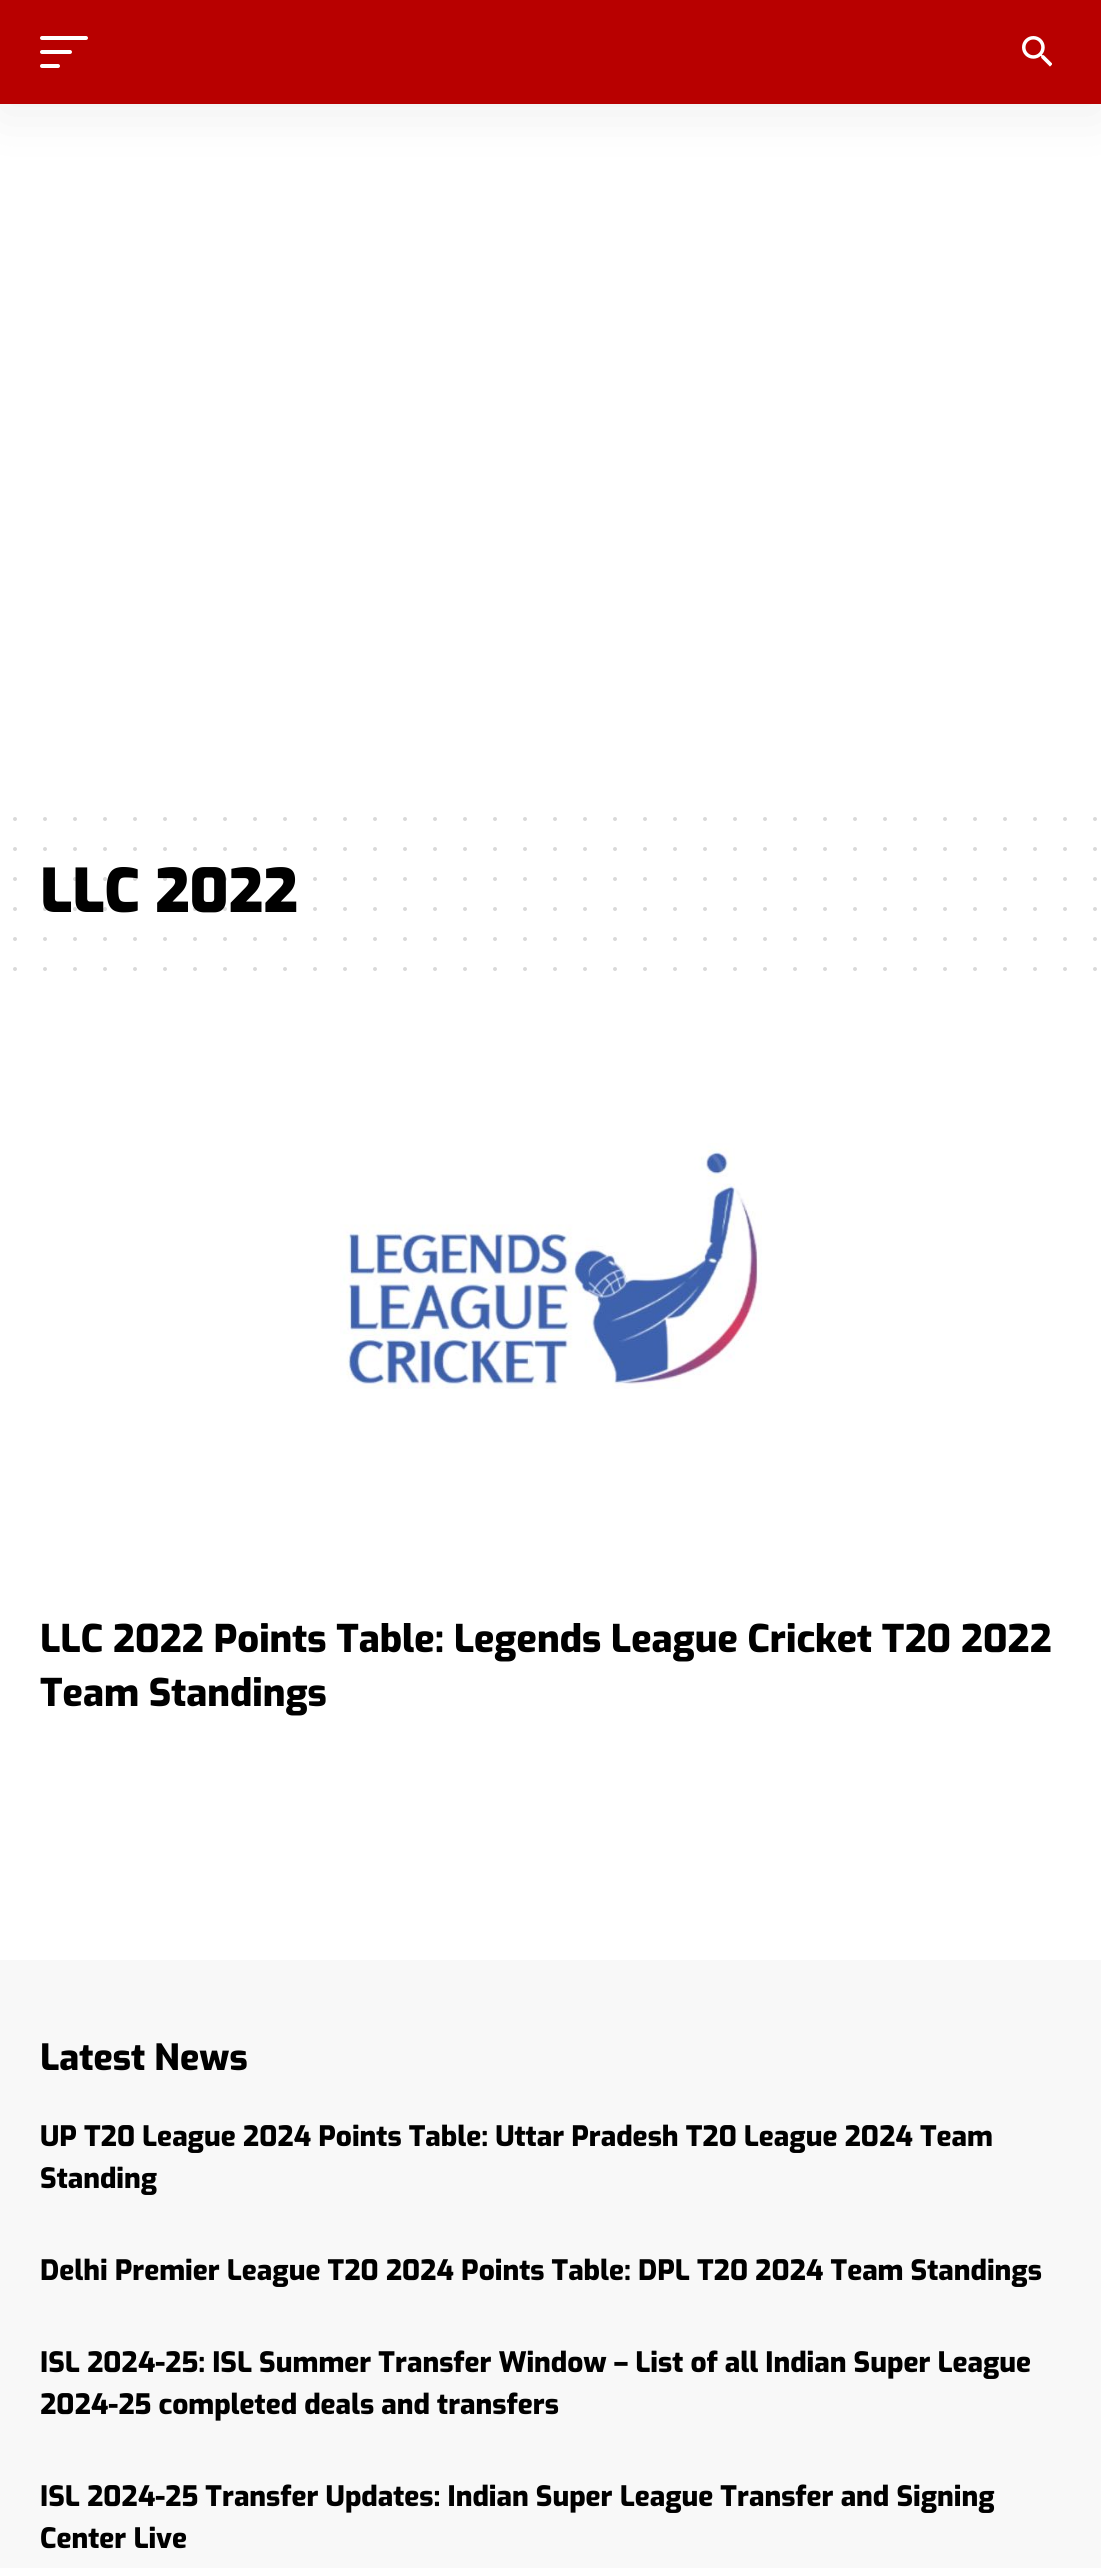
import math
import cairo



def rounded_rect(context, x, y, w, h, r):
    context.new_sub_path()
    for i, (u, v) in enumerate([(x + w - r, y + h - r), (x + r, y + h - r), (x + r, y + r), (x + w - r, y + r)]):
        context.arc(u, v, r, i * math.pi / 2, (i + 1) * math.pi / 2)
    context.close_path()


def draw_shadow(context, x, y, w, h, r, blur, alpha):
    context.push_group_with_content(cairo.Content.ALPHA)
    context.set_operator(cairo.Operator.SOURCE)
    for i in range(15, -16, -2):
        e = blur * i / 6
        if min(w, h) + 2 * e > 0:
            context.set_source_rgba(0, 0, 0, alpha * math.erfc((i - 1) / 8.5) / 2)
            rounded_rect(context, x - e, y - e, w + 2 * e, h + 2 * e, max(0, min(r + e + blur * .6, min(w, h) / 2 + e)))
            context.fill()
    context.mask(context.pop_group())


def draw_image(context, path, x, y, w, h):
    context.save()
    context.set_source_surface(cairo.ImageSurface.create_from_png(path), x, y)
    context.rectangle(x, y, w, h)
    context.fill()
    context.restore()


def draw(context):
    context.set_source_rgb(1, 1, 1)
    context.paint()
    context.set_source_rgb(0, 0, 0)
    draw_shadow(context, 0, 8, 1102, 104, 0, 30, 0.07)
    context.set_source_rgb(184 / 255, 0, 0)
    context.rectangle(0, 0, 1101, 104)
    context.fill()
    context.set_source_rgb(1, 1, 1)
    rounded_rect(context, 40, 36, 48, 4, 2)
    context.fill()
    rounded_rect(context, 40, 50, 32, 4, 2)
    context.fill()
    rounded_rect(context, 40, 64, 20, 4, 2)
    context.fill()
    draw_image(context, "images/1.png", 1022, 36, 30, 31)
    context.new_path()
    context.move_to(15, 819)
    context.line_to(1095.4, 819)
    context.set_source_rgb(217 / 255, 217 / 255, 217 / 255)
    context.set_line_width(4)
    context.set_line_cap(cairo.LineCap.ROUND)
    context.set_dash([0, 30])
    context.stroke()
    context.new_path()
    context.move_to(15, 849)
    context.line_to(1095.4, 849)
    context.stroke()
    context.new_path()
    context.move_to(15, 939)
    context.line_to(1095.4, 939)
    context.stroke()
    context.new_path()
    context.move_to(15, 969)
    context.line_to(1095.4, 969)
    context.stroke()
    draw_image(context, "images/2.png", 340, 1143, 422, 246)
    context.set_source_rgb(248 / 255, 248 / 255, 248 / 255)
    context.rectangle(0, 1960, 1101, 608)
    context.fill()
    context.select_font_face("Exo Black")
    context.set_font_size(60)
    context.set_source_rgb(0, 0, 0)
    context.move_to(40, 912)
    context.show_text("LLC 2022")
    context.new_path()
    context.move_to(15, 909)
    context.line_to(1095.4, 909)
    context.set_source_rgba(0, 0, 0, 0.15)
    context.stroke()
    context.new_path()
    context.move_to(15, 879)
    context.line_to(1095.4, 879)
    context.stroke()
    context.select_font_face("Exo ExtraBold")
    context.set_font_size(38)
    context.set_source_rgb(0, 0, 0)
    context.move_to(40, 1652)
    context.show_text("LLC 2022 Points Table: Legends League Cricket T20 2022")
    context.move_to(40, 1706)
    context.show_text("Team Standings")
    context.set_font_size(36)
    context.move_to(40, 2070)
    context.show_text("Latest News")
    context.set_font_size(28)
    context.move_to(40, 2146)
    context.show_text("UP T20 League 2024 Points Table: Uttar Pradesh T20 League 2024 Team")
    context.move_to(40, 2188)
    context.show_text("Standing")
    context.move_to(40, 2280)
    context.show_text("Delhi Premier League T20 2024 Points Table: DPL T20 2024 Team Standings")
    context.move_to(40, 2372)
    context.show_text("ISL 2024-25: ISL Summer Transfer Window – List of all Indian Super League")
    context.move_to(40, 2414)
    context.show_text("2024-25 completed deals and transfers")
    context.move_to(40, 2506)
    context.show_text("ISL 2024-25 Transfer Updates: Indian Super League Transfer and Signing")
    context.move_to(40, 2548)
    context.show_text("Center Live")


surface = cairo.ImageSurface(cairo.Format.RGB24, 1101, 2568)
context = cairo.Context(surface)
options = cairo.FontOptions()
options.set_hint_metrics(cairo.HintMetrics.OFF)
options.set_hint_style(cairo.HintStyle.NONE)
context.set_font_options(options)
context.set_miter_limit(4)
draw(context)
surface.write_to_png("out.png")
